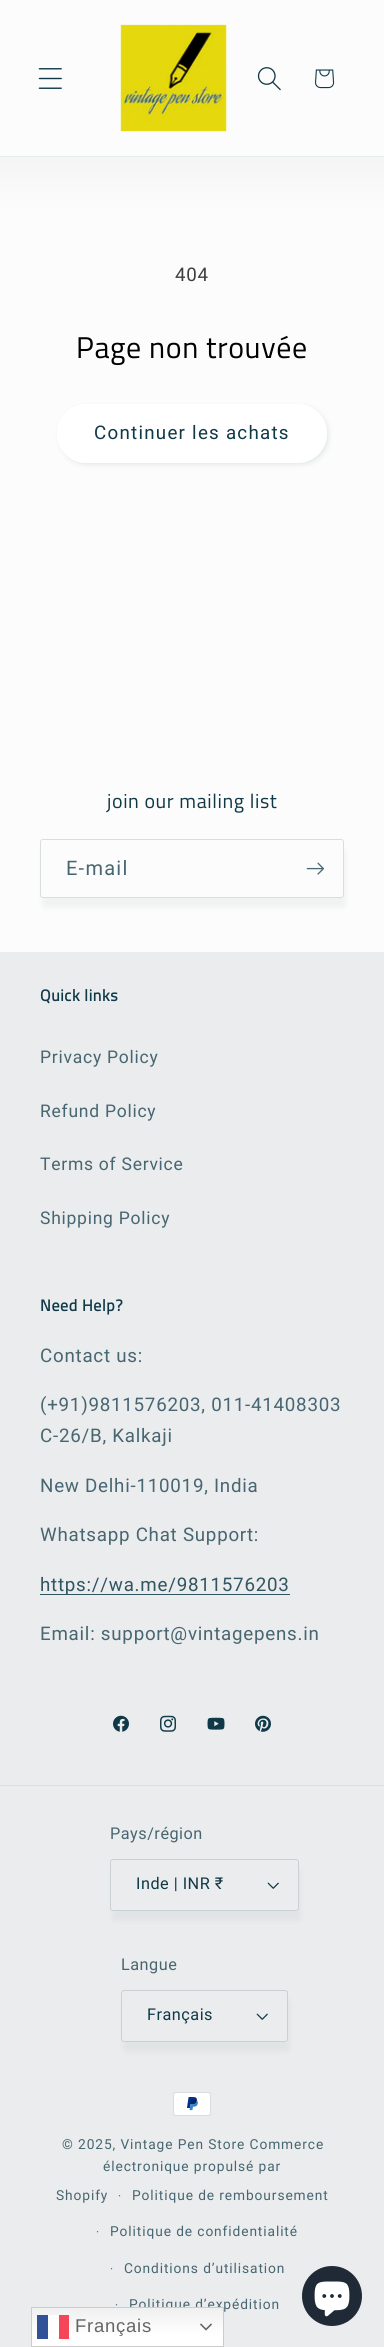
import math
import cairo



def draw_spaced(context, x, y, s, letter, word):
    context.move_to(x, y)
    for ch in s:
        context.show_text(ch)
        context.rel_move_to(letter + word * (ch == ' '), 0)


def rounded_rect(context, x, y, w, h, r):
    context.new_sub_path()
    for i, (u, v) in enumerate([(x + w - r, y + h - r), (x + r, y + h - r), (x + r, y + r), (x + w - r, y + r)]):
        context.arc(u, v, r, i * math.pi / 2, (i + 1) * math.pi / 2)
    context.close_path()


def draw_shadow(context, x, y, w, h, r, blur, alpha):
    context.push_group_with_content(cairo.Content.ALPHA)
    context.set_operator(cairo.Operator.SOURCE)
    for i in range(15, -16, -2):
        e = blur * i / 6
        if min(w, h) + 2 * e > 0:
            context.set_source_rgba(0, 0, 0, alpha * math.erfc((i - 1) / 8.5) / 2)
            rounded_rect(context, x - e, y - e, w + 2 * e, h + 2 * e, max(0, min(r + e + blur * .6, min(w, h) / 2 + e)))
            context.fill()
    context.mask(context.pop_group())


def draw_image(context, path, x, y, w, h):
    context.save()
    context.set_source_surface(cairo.ImageSurface.create_from_png(path), x, y)
    context.rectangle(x, y, w, h)
    context.fill()
    context.restore()


def draw(context):
    context.set_source_rgb(1, 1, 1)
    context.paint()
    gradient = cairo.LinearGradient(192, 2347, 192, 0)
    gradient.add_color_stop_rgba(0.91, 252 / 255, 252 / 255, 252 / 255, 1)
    gradient.add_color_stop_rgba(0.96, 235 / 255, 236 / 255, 237 / 255, 1)
    context.set_source(gradient)
    context.rectangle(0, 157, 384, 795)
    context.fill()
    context.set_source_rgb(252 / 255, 252 / 255, 252 / 255)
    context.rectangle(0, 0, 384, 156)
    context.fill()
    context.set_source_rgb(233 / 255, 236 / 255, 238 / 255)
    context.rectangle(0, 156, 384, 1)
    context.fill()
    draw_image(context, "images/1.png", 38, 68, 24, 21)
    draw_image(context, "images/2.png", 120, 24, 107, 108)
    draw_image(context, "images/3.png", 257, 67, 24, 24)
    draw_image(context, "images/4.png", 315, 69, 20, 20)
    context.set_source_rgb(16 / 255, 57 / 255, 72 / 255)
    draw_shadow(context, 59, 406, 270, 59, 29.5, 2.5, 0.1)
    context.set_source_rgb(1, 1, 1)
    rounded_rect(context, 57, 404, 270, 59, 29.5)
    context.fill()
    rounded_rect(context, 57.5, 404.5, 269, 58, 29)
    context.set_line_width(1)
    context.stroke()
    context.save()
    context.set_fill_rule(cairo.FillRule.EVEN_ODD)
    context.new_path()
    context.move_to(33, 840)
    context.line_to(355, 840)
    context.line_to(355, 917)
    context.line_to(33, 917)
    context.close_path()
    context.move_to(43, 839)
    context.line_to(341, 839)
    context.curve_to(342.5, 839, 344, 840.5, 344, 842)
    context.line_to(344, 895)
    context.curve_to(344, 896.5, 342.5, 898, 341, 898)
    context.line_to(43, 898)
    context.curve_to(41.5, 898, 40, 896.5, 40, 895)
    context.line_to(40, 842)
    context.curve_to(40, 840.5, 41.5, 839, 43, 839)
    context.close_path()
    context.clip()
    context.set_source_rgb(16 / 255, 57 / 255, 72 / 255)
    draw_shadow(context, 42, 849, 304, 59, 3, 2.5, 0.05)
    context.restore()
    rounded_rect(context, 40.5, 839.5, 303, 58, 2.5)
    context.set_source_rgba(16 / 255, 57 / 255, 72 / 255, 0.15)
    context.stroke()
    draw_image(context, "images/5.png", 306, 862, 18, 13)
    context.set_source_rgb(235 / 255, 236 / 255, 237 / 255)
    context.rectangle(0, 952, 384, 1395)
    context.fill()
    context.set_source_rgb(49 / 255, 84 / 255, 97 / 255)
    context.rectangle(40, 1594, 250, 1)
    context.fill()
    draw_image(context, "images/6.png", 113, 1715, 16, 17)
    draw_image(context, "images/7.png", 160, 1715, 16, 17)
    draw_image(context, "images/8.png", 207, 1717, 18, 13)
    draw_image(context, "images/9.png", 255, 1715, 16, 17)
    context.set_source_rgb(217 / 255, 222 / 255, 224 / 255)
    context.rectangle(0, 1785, 384, 1)
    context.fill()
    context.set_source_rgb(16 / 255, 57 / 255, 72 / 255)
    draw_shadow(context, 112, 1869, 189, 52, 3, 2.5, 0.05)
    context.set_source_rgb(235 / 255, 236 / 255, 237 / 255)
    rounded_rect(context, 110, 1859, 189, 52, 3)
    context.fill()
    draw_image(context, "images/10.png", 267, 1882, 12, 7)
    rounded_rect(context, 110.5, 1859.5, 188, 51, 2.5)
    context.set_source_rgb(202 / 255, 209 / 255, 212 / 255)
    context.stroke()
    context.set_source_rgb(16 / 255, 57 / 255, 72 / 255)
    draw_shadow(context, 123, 2000, 167, 52, 3, 2.5, 0.05)
    context.set_source_rgb(235 / 255, 236 / 255, 237 / 255)
    rounded_rect(context, 121, 1990, 167, 52, 3)
    context.fill()
    draw_image(context, "images/10.png", 256, 2013, 12, 7)
    rounded_rect(context, 121.5, 1990.5, 166, 51, 2.5)
    context.set_source_rgb(202 / 255, 209 / 255, 212 / 255)
    context.stroke()
    draw_image(context, "images/11.png", 173, 2092, 38, 24)
    context.set_source_rgb(32 / 255, 42 / 255, 54 / 255)
    context.arc(332, 2296, 30, 0, 2 * math.pi)
    context.fill()
    draw_image(context, "images/13.png", 314, 2281, 36, 36)
    context.select_font_face("Roboto")
    context.set_font_size(18.75)
    context.set_source_rgb(63 / 255, 63 / 255, 63 / 255)
    draw_spaced(context, 175, 281, "404", 0.75, 0)
    context.select_font_face("Titillium Web")
    context.set_font_size(30)
    context.set_source_rgb(0, 0, 0)
    draw_spaced(context, 76, 358, "Page non trouvée", 0.6, 0)
    context.select_font_face("Roboto")
    context.set_font_size(18.75)
    context.set_source_rgb(16 / 255, 57 / 255, 72 / 255)
    draw_spaced(context, 94, 439, "Continuer les achats", 1.25, 0)
    context.select_font_face("Titillium Web")
    context.set_font_size(20)
    draw_spaced(context, 107, 808, "join our mailing list", 0.6, 0)
    context.select_font_face("Roboto")
    context.set_source_rgb(71 / 255, 102 / 255, 113 / 255)
    draw_spaced(context, 66, 875, "E-mail", 1.25, 0)
    context.select_font_face("Titillium Web", cairo.FontSlant.NORMAL, cairo.FontWeight.BOLD)
    context.set_font_size(16)
    context.set_source_rgb(16 / 255, 57 / 255, 72 / 255)
    draw_spaced(context, 40, 1001, "Quick links", 0.6, 0)
    context.select_font_face("Roboto")
    context.set_font_size(17.5)
    context.set_source_rgb(71 / 255, 102 / 255, 113 / 255)
    draw_spaced(context, 40, 1063, "Privacy Policy", 0.75, 0)
    draw_spaced(context, 40, 1117, "Refund Policy", 0.75, 0)
    draw_spaced(context, 40, 1170, "Terms of Service", 0.75, 0)
    draw_spaced(context, 40, 1224, "Shipping Policy", 0.75, 0)
    context.select_font_face("Titillium Web", cairo.FontSlant.NORMAL, cairo.FontWeight.BOLD)
    context.set_font_size(16)
    context.set_source_rgb(16 / 255, 57 / 255, 72 / 255)
    draw_spaced(context, 40, 1311, "Need Help?", 0.6, 0)
    context.select_font_face("Roboto")
    context.set_font_size(18.75)
    context.set_source_rgb(71 / 255, 102 / 255, 113 / 255)
    draw_spaced(context, 40, 1362, "Contact us:", 0.75, 0)
    draw_spaced(context, 40, 1411, "(+91)9811576203, 011-41408303", 0.75, 0)
    draw_spaced(context, 40, 1442, "C-26/B, Kalkaji", 0.75, 0)
    draw_spaced(context, 40, 1492, "New Delhi-110019, India", 0.75, 0)
    draw_spaced(context, 40, 1541, "Whatsapp Chat Support:", 0.75, 0)
    context.set_source_rgb(49 / 255, 84 / 255, 97 / 255)
    draw_spaced(context, 40, 1591, "https://wa.me/9811576203", 0.75, 0)
    context.set_source_rgb(71 / 255, 102 / 255, 113 / 255)
    draw_spaced(context, 40, 1640, "Email: support@vintagepens.in", 0.75, 0)
    context.set_font_size(16.25)
    draw_spaced(context, 110, 1839, "Pays/région", 0.5, 0)
    context.set_source_rgb(16 / 255, 57 / 255, 72 / 255)
    draw_spaced(context, 136, 1889, "Inde | INR ₹", 0.5, 0)
    context.set_source_rgb(71 / 255, 102 / 255, 113 / 255)
    draw_spaced(context, 121, 1970, "Langue", 0.5, 0)
    context.set_source_rgb(16 / 255, 57 / 255, 72 / 255)
    draw_spaced(context, 147, 2020, "Français", 0.5, 0)
    context.set_font_size(13.75)
    context.set_source_rgb(71 / 255, 102 / 255, 113 / 255)
    draw_spaced(context, 62, 2149, "© 2025, Vintage Pen Store Commerce", 0.9, 0)
    draw_spaced(context, 103, 2171, "électronique propulsé par", 0.9, 0)
    draw_spaced(context, 56, 2200, "Shopify", 0.9, 0)
    context.set_font_size(12)
    draw_spaced(context, 118, 2200, "·", 0.9, 0)
    context.set_font_size(13.75)
    draw_spaced(context, 132, 2200, "Politique de remboursement", 0.9, 0)
    context.set_font_size(12)
    draw_spaced(context, 96, 2236, "·", 0.9, 0)
    context.set_font_size(13.75)
    draw_spaced(context, 110, 2236, "Politique de confidentialité", 0.9, 0)
    context.set_font_size(12)
    draw_spaced(context, 110, 2273, "·", 0.9, 0)
    context.set_font_size(13.75)
    draw_spaced(context, 124, 2273, "Conditions d’utilisation", 0.9, 0)
    context.set_font_size(12)
    draw_spaced(context, 115, 2309, "·", 0.9, 0)
    context.set_font_size(13.75)
    draw_spaced(context, 129, 2309, "Politique d’expédition", 0.9, 0)
    gradient = cairo.LinearGradient(128, 2307, 128, 2347)
    gradient.add_color_stop_rgba(0, 239 / 255, 239 / 255, 239 / 255, 1)
    gradient.add_color_stop_rgba(0.7, 1, 1, 1, 1)
    context.set_source(gradient)
    context.rectangle(32, 2308, 191, 38)
    context.fill()
    gradient = cairo.LinearGradient(128, 2307, 128, 2347)
    gradient.add_color_stop_rgba(0, 252 / 255, 252 / 255, 252 / 255, 1)
    gradient.add_color_stop_rgba(0.7, 1, 1, 1, 1)
    context.set_source(gradient)
    context.rectangle(48, 2315, 11, 16)
    context.fill()
    context.rectangle(31.5, 2307.5, 192, 39)
    context.set_source_rgb(204 / 255, 204 / 255, 204 / 255)
    context.stroke()
    context.set_source_rgb(51 / 255, 81 / 255, 152 / 255)
    context.rectangle(37, 2315, 11, 24)
    context.fill()
    context.set_source_rgb(245 / 255, 70 / 255, 89 / 255)
    context.rectangle(59, 2315, 10, 24)
    context.fill()
    context.select_font_face("Liberation Sans")
    context.set_font_size(18.5)
    context.set_source_rgb(102 / 255, 102 / 255, 102 / 255)
    draw_spaced(context, 75, 2332, "Français", 0.75, 0)
    draw_image(context, "images/12.png", 200, 2323, 12, 8)


surface = cairo.ImageSurface(cairo.Format.RGB24, 384, 2347)
context = cairo.Context(surface)
options = cairo.FontOptions()
options.set_hint_metrics(cairo.HintMetrics.OFF)
options.set_hint_style(cairo.HintStyle.NONE)
context.set_font_options(options)
context.set_miter_limit(4)
draw(context)
surface.write_to_png("out.png")
